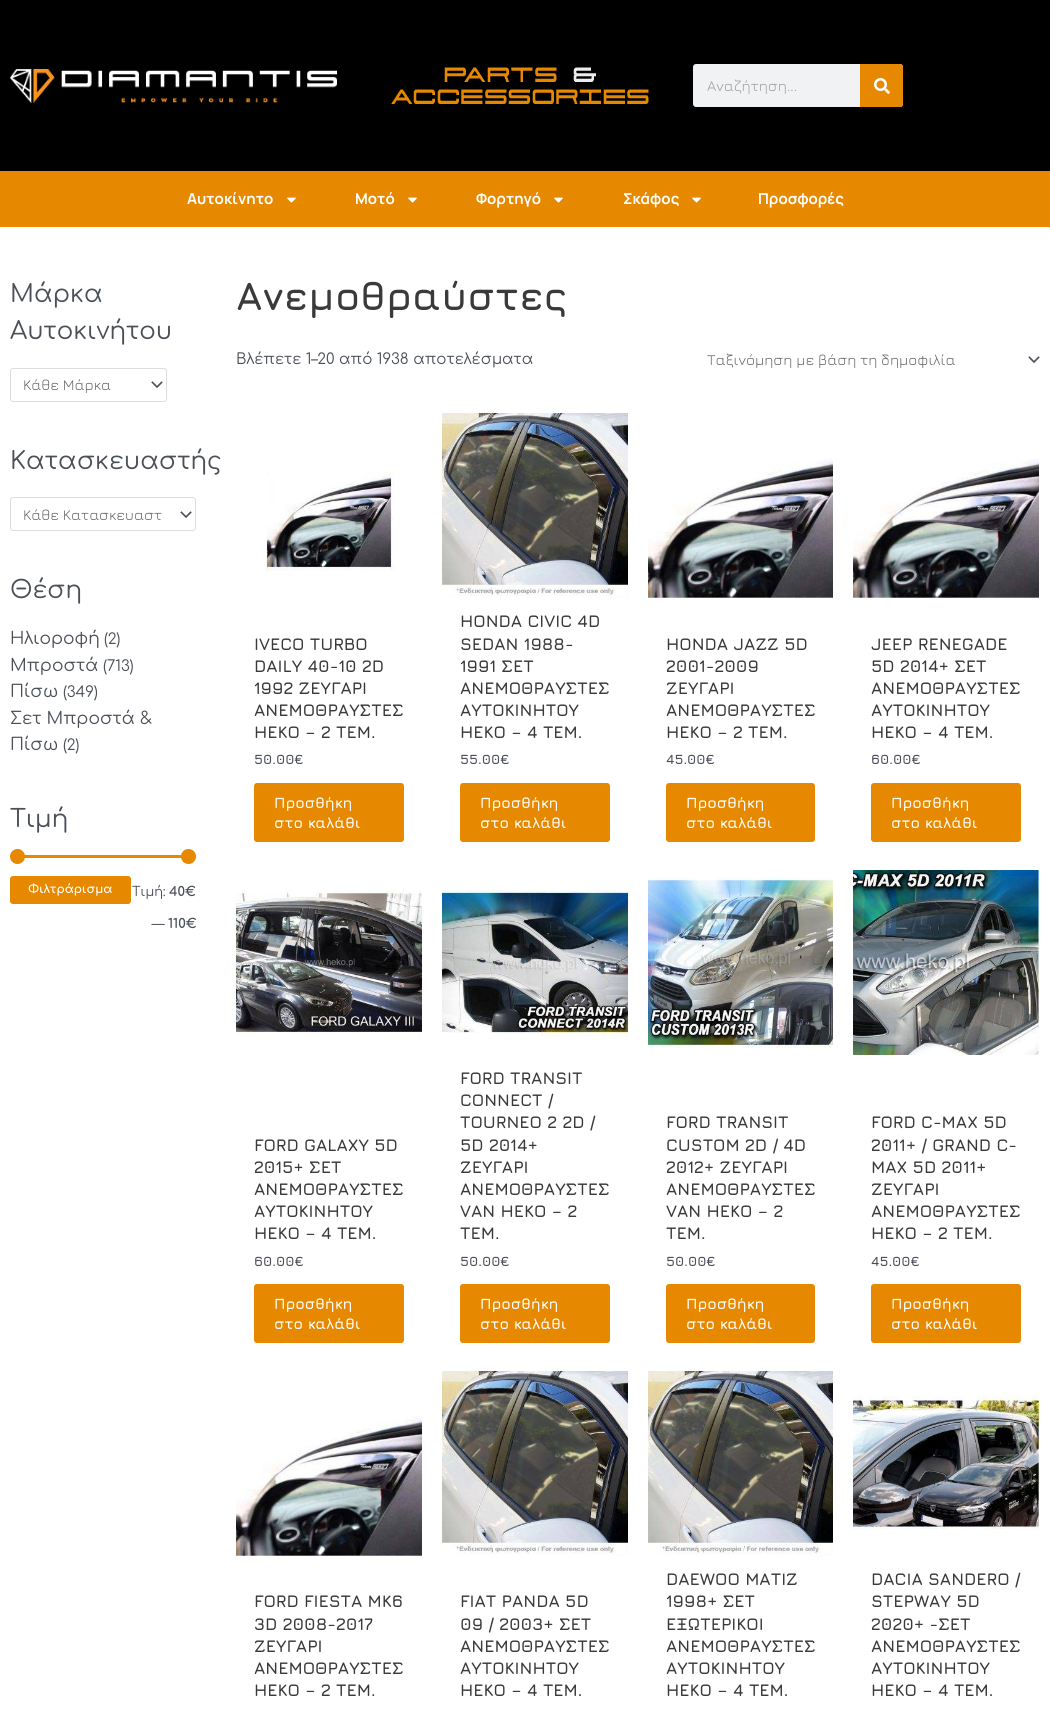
import math
import cairo



def rounded_rect(context, x, y, w, h, r):
    context.new_sub_path()
    for i, (u, v) in enumerate([(x + w - r, y + h - r), (x + r, y + h - r), (x + r, y + r), (x + w - r, y + r)]):
        context.arc(u, v, r, i * math.pi / 2, (i + 1) * math.pi / 2)
    context.close_path()


def draw_image(context, path, x, y, w, h):
    context.save()
    context.set_source_surface(cairo.ImageSurface.create_from_png(path), x, y)
    context.rectangle(x, y, w, h)
    context.fill()
    context.restore()


def draw(context):
    context.set_source_rgb(1, 1, 1)
    context.paint()
    context.set_source_rgb(0, 0, 0)
    context.rectangle(0, 0, 1050, 171)
    context.fill()
    draw_image(context, "images/1.png", 10, 69, 327, 34)
    draw_image(context, "images/2.png", 391, 67, 258, 37)
    context.set_source_rgb(241 / 255, 242 / 255, 243 / 255)
    rounded_rect(context, 693, 64, 210, 43, 3)
    context.fill()
    context.set_source_rgb(230 / 255, 137 / 255, 0)
    context.new_path()
    context.move_to(860, 64)
    context.line_to(900, 64)
    context.curve_to(901.5, 64, 903, 65.5, 903, 67)
    context.line_to(903, 104)
    context.curve_to(903, 105.5, 901.5, 107, 900, 107)
    context.line_to(860, 107)
    context.close_path()
    context.fill()
    draw_image(context, "images/3.png", 874, 78, 16, 16)
    context.rectangle(0, 171, 1050, 56)
    context.fill()
    draw_image(context, "images/4.png", 287, 197, 9, 6)
    draw_image(context, "images/4.png", 408, 197, 9, 6)
    draw_image(context, "images/4.png", 554, 197, 9, 6)
    draw_image(context, "images/4.png", 692, 197, 9, 6)
    draw_image(context, "images/5.png", 151, 381, 12, 7)
    rounded_rect(context, 10.5, 368.5, 156, 33, 2.5)
    context.set_source_rgb(221 / 255, 221 / 255, 221 / 255)
    context.set_line_width(1)
    context.stroke()
    draw_image(context, "images/5.png", 180, 511, 12, 7)
    rounded_rect(context, 10.5, 497.5, 185, 33, 2.5)
    context.stroke()
    context.set_source_rgb(230 / 255, 137 / 255, 0)
    context.rectangle(18, 855, 171, 3)
    context.fill()
    context.arc(17.5, 856.5, 7.5, 0, 2 * math.pi)
    context.fill()
    context.arc(188.5, 856.5, 7.5, 0, 2 * math.pi)
    context.fill()
    rounded_rect(context, 10, 876, 121, 28, 3)
    context.fill()
    draw_image(context, "images/5.png", 1028, 356, 12, 7)
    draw_image(context, "images/6.png", 265, 472, 130, 99)
    rounded_rect(context, 254, 783, 150, 59, 3)
    context.fill()
    draw_image(context, "images/7.png", 442, 413, 186, 185)
    rounded_rect(context, 460, 783, 150, 59, 3)
    context.fill()
    draw_image(context, "images/8.png", 648, 458, 185, 140)
    rounded_rect(context, 666, 783, 149, 59, 3)
    context.fill()
    draw_image(context, "images/9.png", 853, 458, 186, 140)
    rounded_rect(context, 871, 783, 150, 59, 3)
    context.fill()
    draw_image(context, "images/10.png", 236, 890, 186, 146)
    rounded_rect(context, 254, 1284, 150, 59, 3)
    context.fill()
    draw_image(context, "images/11.png", 442, 889, 186, 149)
    rounded_rect(context, 460, 1284, 150, 59, 3)
    context.fill()
    draw_image(context, "images/12.png", 648, 877, 185, 171)
    rounded_rect(context, 666, 1284, 149, 59, 3)
    context.fill()
    draw_image(context, "images/13.png", 853, 870, 186, 185)
    rounded_rect(context, 871, 1284, 150, 59, 3)
    context.fill()
    draw_image(context, "images/14.png", 236, 1416, 186, 140)
    draw_image(context, "images/7.png", 442, 1371, 186, 185)
    draw_image(context, "images/15.png", 648, 1371, 185, 185)
    draw_image(context, "images/16.png", 853, 1391, 186, 138)
    context.select_font_face("Jura")
    context.set_font_size(15)
    context.set_source_rgb(158 / 255, 158 / 255, 158 / 255)
    context.move_to(707, 91)
    context.show_text("Αναζήτηση...")
    context.select_font_face("Manrope", cairo.FontSlant.NORMAL, cairo.FontWeight.BOLD)
    context.set_source_rgb(1, 254 / 255, 252 / 255)
    context.move_to(187, 204)
    context.show_text("Αυτοκίνητο")
    context.move_to(355, 204)
    context.show_text("Μοτό")
    context.move_to(476, 204)
    context.show_text("Φορτηγό")
    context.move_to(623, 204)
    context.show_text("Σκάφος")
    context.move_to(758, 204)
    context.show_text("Προσφορές")
    context.select_font_face("Comfortaa")
    context.set_font_size(24.4)
    context.set_source_rgb(75 / 255, 79 / 255, 88 / 255)
    context.move_to(10, 302)
    context.show_text("Μάρκα")
    context.move_to(10, 339)
    context.show_text("Αυτοκινήτου")
    context.select_font_face("Jura")
    context.set_font_size(15)
    context.set_source_rgb(102 / 255, 102 / 255, 102 / 255)
    context.move_to(23, 390)
    context.show_text("Κάθε Μάρκα")
    context.select_font_face("Comfortaa")
    context.set_font_size(24.4)
    context.set_source_rgb(75 / 255, 79 / 255, 88 / 255)
    context.move_to(10, 469)
    context.show_text("Κατασκευαστής")
    context.select_font_face("Jura")
    context.set_font_size(15)
    context.set_source_rgb(102 / 255, 102 / 255, 102 / 255)
    context.move_to(23, 520)
    context.show_text("Κάθε Κατασκευαστ")
    context.select_font_face("Comfortaa")
    context.set_font_size(24.4)
    context.set_source_rgb(75 / 255, 79 / 255, 88 / 255)
    context.move_to(10, 598)
    context.show_text("Θέση")
    context.set_font_size(17)
    context.move_to(10, 644)
    context.show_text("Ηλιοροφή")
    context.set_font_size(15)
    context.move_to(104, 644)
    context.show_text("(2)")
    context.set_font_size(17)
    context.move_to(10, 671)
    context.show_text("Μπροστά")
    context.set_font_size(15)
    context.move_to(103, 671)
    context.show_text("(713)")
    context.set_font_size(17)
    context.move_to(10, 697)
    context.show_text("Πίσω")
    context.set_font_size(15)
    context.move_to(63, 697)
    context.show_text("(349)")
    context.set_font_size(17)
    context.move_to(10, 724)
    context.show_text("Σετ Μπροστά &")
    context.move_to(10, 750)
    context.show_text("Πίσω")
    context.set_font_size(15)
    context.move_to(63, 750)
    context.show_text("(2)")
    context.set_font_size(24.4)
    context.move_to(10, 827)
    context.show_text("Τιμή")
    context.select_font_face("Comfortaa", cairo.FontSlant.NORMAL, cairo.FontWeight.BOLD)
    context.set_font_size(11.75)
    context.set_source_rgb(1, 254 / 255, 252 / 255)
    context.move_to(28, 893)
    context.show_text("Φιλτράρισμα")
    context.select_font_face("Comfortaa")
    context.set_font_size(13)
    context.set_source_rgb(75 / 255, 79 / 255, 88 / 255)
    context.move_to(132, 896)
    context.show_text("Τιμή:")
    context.select_font_face("Comfortaa", cairo.FontSlant.NORMAL, cairo.FontWeight.BOLD)
    context.move_to(169, 896)
    context.show_text("40€")
    context.select_font_face("Comfortaa")
    context.move_to(152, 928)
    context.show_text("—")
    context.select_font_face("Comfortaa", cairo.FontSlant.NORMAL, cairo.FontWeight.BOLD)
    context.move_to(168, 928)
    context.show_text("110€")
    context.select_font_face("Jura", cairo.FontSlant.NORMAL, cairo.FontWeight.BOLD)
    context.set_font_size(40)
    context.set_source_rgb(58 / 255, 58 / 255, 58 / 255)
    context.move_to(236, 310)
    context.show_text("Ανεμοθραύστες")
    context.select_font_face("Comfortaa")
    context.set_font_size(15)
    context.set_source_rgb(75 / 255, 79 / 255, 88 / 255)
    context.move_to(236, 364)
    context.show_text("Βλέπετε 1–20 από 1938 αποτελέσματα")
    context.select_font_face("Jura")
    context.set_source_rgb(102 / 255, 102 / 255, 102 / 255)
    context.move_to(707, 365)
    context.show_text("Ταξινόμηση με βάση τη δημοφιλία")
    context.select_font_face("Jura", cairo.FontSlant.NORMAL, cairo.FontWeight.BOLD)
    context.set_font_size(17)
    context.set_source_rgb(58 / 255, 58 / 255, 58 / 255)
    context.move_to(254, 650)
    context.show_text("IVECO TURBO")
    context.move_to(254, 672)
    context.show_text("DAILY 40-10 2D")
    context.move_to(254, 694)
    context.show_text("1992 ΖΕΥΓΑΡΙ")
    context.move_to(254, 716)
    context.show_text("ΑΝΕΜΟΘΡΑΥΣΤΕΣ")
    context.move_to(254, 738)
    context.show_text("HEKO – 2 ΤΕΜ.")
    context.set_font_size(13.5)
    context.set_source_rgb(75 / 255, 79 / 255, 88 / 255)
    context.move_to(254, 764)
    context.show_text("50.00€")
    context.set_font_size(15)
    context.set_source_rgb(1, 254 / 255, 252 / 255)
    context.move_to(274, 808)
    context.show_text("Προσθήκη")
    context.move_to(274, 828)
    context.show_text("στο καλάθι")
    context.set_font_size(17)
    context.set_source_rgb(58 / 255, 58 / 255, 58 / 255)
    context.move_to(460, 627)
    context.show_text("HONDA CIVIC 4D")
    context.move_to(460, 650)
    context.show_text("SEDAN 1988-")
    context.move_to(460, 672)
    context.show_text("1991 ΣΕΤ")
    context.move_to(460, 694)
    context.show_text("ΑΝΕΜΟΘΡΑΥΣΤΕΣ")
    context.move_to(460, 716)
    context.show_text("ΑΥΤΟΚΙΝΗΤΟΥ")
    context.move_to(460, 738)
    context.show_text("HEKO – 4 ΤΕΜ.")
    context.set_font_size(13.5)
    context.set_source_rgb(75 / 255, 79 / 255, 88 / 255)
    context.move_to(460, 764)
    context.show_text("55.00€")
    context.set_font_size(15)
    context.set_source_rgb(1, 254 / 255, 252 / 255)
    context.move_to(480, 808)
    context.show_text("Προσθήκη")
    context.move_to(480, 828)
    context.show_text("στο καλάθι")
    context.set_font_size(17)
    context.set_source_rgb(58 / 255, 58 / 255, 58 / 255)
    context.move_to(666, 650)
    context.show_text("HONDA JAZZ 5D")
    context.move_to(666, 672)
    context.show_text("2001-2009")
    context.move_to(666, 694)
    context.show_text("ΖΕΥΓΑΡΙ")
    context.move_to(666, 716)
    context.show_text("ΑΝΕΜΟΘΡΑΥΣΤΕΣ")
    context.move_to(666, 738)
    context.show_text("HEKO – 2 ΤΕΜ.")
    context.set_font_size(13.5)
    context.set_source_rgb(75 / 255, 79 / 255, 88 / 255)
    context.move_to(666, 764)
    context.show_text("45.00€")
    context.set_font_size(15)
    context.set_source_rgb(1, 254 / 255, 252 / 255)
    context.move_to(686, 808)
    context.show_text("Προσθήκη")
    context.move_to(686, 828)
    context.show_text("στο καλάθι")
    context.set_font_size(17)
    context.set_source_rgb(58 / 255, 58 / 255, 58 / 255)
    context.move_to(871, 650)
    context.show_text("JEEP RENEGADE")
    context.move_to(871, 672)
    context.show_text("5D 2014+ ΣΕΤ")
    context.move_to(871, 694)
    context.show_text("ΑΝΕΜΟΘΡΑΥΣΤΕΣ")
    context.move_to(871, 716)
    context.show_text("ΑΥΤΟΚΙΝΗΤΟΥ")
    context.move_to(871, 738)
    context.show_text("HEKO – 4 ΤΕΜ.")
    context.set_font_size(13.5)
    context.set_source_rgb(75 / 255, 79 / 255, 88 / 255)
    context.move_to(871, 764)
    context.show_text("60.00€")
    context.set_font_size(15)
    context.set_source_rgb(1, 254 / 255, 252 / 255)
    context.move_to(891, 808)
    context.show_text("Προσθήκη")
    context.move_to(891, 828)
    context.show_text("στο καλάθι")
    context.set_font_size(17)
    context.set_source_rgb(58 / 255, 58 / 255, 58 / 255)
    context.move_to(254, 1151)
    context.show_text("FORD GALAXY 5D")
    context.move_to(254, 1173)
    context.show_text("2015+ ΣΕΤ")
    context.move_to(254, 1195)
    context.show_text("ΑΝΕΜΟΘΡΑΥΣΤΕΣ")
    context.move_to(254, 1217)
    context.show_text("ΑΥΤΟΚΙΝΗΤΟΥ")
    context.move_to(254, 1239)
    context.show_text("HEKO – 4 ΤΕΜ.")
    context.set_font_size(13.5)
    context.set_source_rgb(75 / 255, 79 / 255, 88 / 255)
    context.move_to(254, 1266)
    context.show_text("60.00€")
    context.set_font_size(15)
    context.set_source_rgb(1, 254 / 255, 252 / 255)
    context.move_to(274, 1309)
    context.show_text("Προσθήκη")
    context.move_to(274, 1329)
    context.show_text("στο καλάθι")
    context.set_font_size(17)
    context.set_source_rgb(58 / 255, 58 / 255, 58 / 255)
    context.move_to(460, 1084)
    context.show_text("FORD TRANSIT")
    context.move_to(460, 1106)
    context.show_text("CONNECT /")
    context.move_to(460, 1128)
    context.show_text("TOURNEO 2 2D /")
    context.move_to(460, 1151)
    context.show_text("5D 2014+")
    context.move_to(460, 1173)
    context.show_text("ΖΕΥΓΑΡΙ")
    context.move_to(460, 1195)
    context.show_text("ΑΝΕΜΟΘΡΑΥΣΤΕΣ")
    context.move_to(460, 1217)
    context.show_text("VAN HEKO – 2")
    context.move_to(460, 1239)
    context.show_text("ΤΕΜ.")
    context.set_font_size(13.5)
    context.set_source_rgb(75 / 255, 79 / 255, 88 / 255)
    context.move_to(460, 1266)
    context.show_text("50.00€")
    context.set_font_size(15)
    context.set_source_rgb(1, 254 / 255, 252 / 255)
    context.move_to(480, 1309)
    context.show_text("Προσθήκη")
    context.move_to(480, 1329)
    context.show_text("στο καλάθι")
    context.set_font_size(17)
    context.set_source_rgb(58 / 255, 58 / 255, 58 / 255)
    context.move_to(666, 1128)
    context.show_text("FORD TRANSIT")
    context.move_to(666, 1151)
    context.show_text("CUSTOM 2D / 4D")
    context.move_to(666, 1173)
    context.show_text("2012+ ΖΕΥΓΑΡΙ")
    context.move_to(666, 1195)
    context.show_text("ΑΝΕΜΟΘΡΑΥΣΤΕΣ")
    context.move_to(666, 1217)
    context.show_text("VAN HEKO – 2")
    context.move_to(666, 1239)
    context.show_text("ΤΕΜ.")
    context.set_font_size(13.5)
    context.set_source_rgb(75 / 255, 79 / 255, 88 / 255)
    context.move_to(666, 1266)
    context.show_text("50.00€")
    context.set_font_size(15)
    context.set_source_rgb(1, 254 / 255, 252 / 255)
    context.move_to(686, 1309)
    context.show_text("Προσθήκη")
    context.move_to(686, 1329)
    context.show_text("στο καλάθι")
    context.set_font_size(17)
    context.set_source_rgb(58 / 255, 58 / 255, 58 / 255)
    context.move_to(871, 1128)
    context.show_text("FORD C-MAX 5D")
    context.move_to(871, 1151)
    context.show_text("2011+ / GRAND C-")
    context.move_to(871, 1173)
    context.show_text("MAX 5D 2011+")
    context.move_to(871, 1195)
    context.show_text("ΖΕΥΓΑΡΙ")
    context.move_to(871, 1217)
    context.show_text("ΑΝΕΜΟΘΡΑΥΣΤΕΣ")
    context.move_to(871, 1239)
    context.show_text("HEKO – 2 ΤΕΜ.")
    context.set_font_size(13.5)
    context.set_source_rgb(75 / 255, 79 / 255, 88 / 255)
    context.move_to(871, 1266)
    context.show_text("45.00€")
    context.set_font_size(15)
    context.set_source_rgb(1, 254 / 255, 252 / 255)
    context.move_to(891, 1309)
    context.show_text("Προσθήκη")
    context.move_to(891, 1329)
    context.show_text("στο καλάθι")
    context.set_font_size(17)
    context.set_source_rgb(58 / 255, 58 / 255, 58 / 255)
    context.move_to(254, 1607)
    context.show_text("FORD FIESTA MK6")
    context.move_to(254, 1630)
    context.show_text("3D 2008-2017")
    context.move_to(254, 1652)
    context.show_text("ΖΕΥΓΑΡΙ")
    context.move_to(254, 1674)
    context.show_text("ΑΝΕΜΟΘΡΑΥΣΤΕΣ")
    context.move_to(254, 1696)
    context.show_text("HEKO – 2 ΤΕΜ.")
    context.move_to(460, 1607)
    context.show_text("FIAT PANDA 5D")
    context.move_to(460, 1630)
    context.show_text("09 / 2003+ ΣΕΤ")
    context.move_to(460, 1652)
    context.show_text("ΑΝΕΜΟΘΡΑΥΣΤΕΣ")
    context.move_to(460, 1674)
    context.show_text("ΑΥΤΟΚΙΝΗΤΟΥ")
    context.move_to(460, 1696)
    context.show_text("HEKO – 4 ΤΕΜ.")
    context.move_to(666, 1585)
    context.show_text("DAEWOO MATIZ")
    context.move_to(666, 1607)
    context.show_text("1998+ ΣΕΤ")
    context.move_to(666, 1630)
    context.show_text("ΕΞΩΤΕΡΙΚΟΙ")
    context.move_to(666, 1652)
    context.show_text("ΑΝΕΜΟΘΡΑΥΣΤΕΣ")
    context.move_to(666, 1674)
    context.show_text("ΑΥΤΟΚΙΝΗΤΟΥ")
    context.move_to(666, 1696)
    context.show_text("HEKO – 4 ΤΕΜ.")
    context.move_to(871, 1585)
    context.show_text("DACIA SANDERO /")
    context.move_to(871, 1607)
    context.show_text("STEPWAY 5D")
    context.move_to(871, 1630)
    context.show_text("2020+ -ΣΕΤ")
    context.move_to(871, 1652)
    context.show_text("ΑΝΕΜΟΘΡΑΥΣΤΕΣ")
    context.move_to(871, 1674)
    context.show_text("ΑΥΤΟΚΙΝΗΤΟΥ")
    context.move_to(871, 1696)
    context.show_text("HEKO – 4 ΤΕΜ.")


surface = cairo.ImageSurface(cairo.Format.RGB24, 1050, 1714)
context = cairo.Context(surface)
options = cairo.FontOptions()
options.set_hint_metrics(cairo.HintMetrics.OFF)
options.set_hint_style(cairo.HintStyle.NONE)
context.set_font_options(options)
context.set_miter_limit(4)
draw(context)
surface.write_to_png("out.png")
